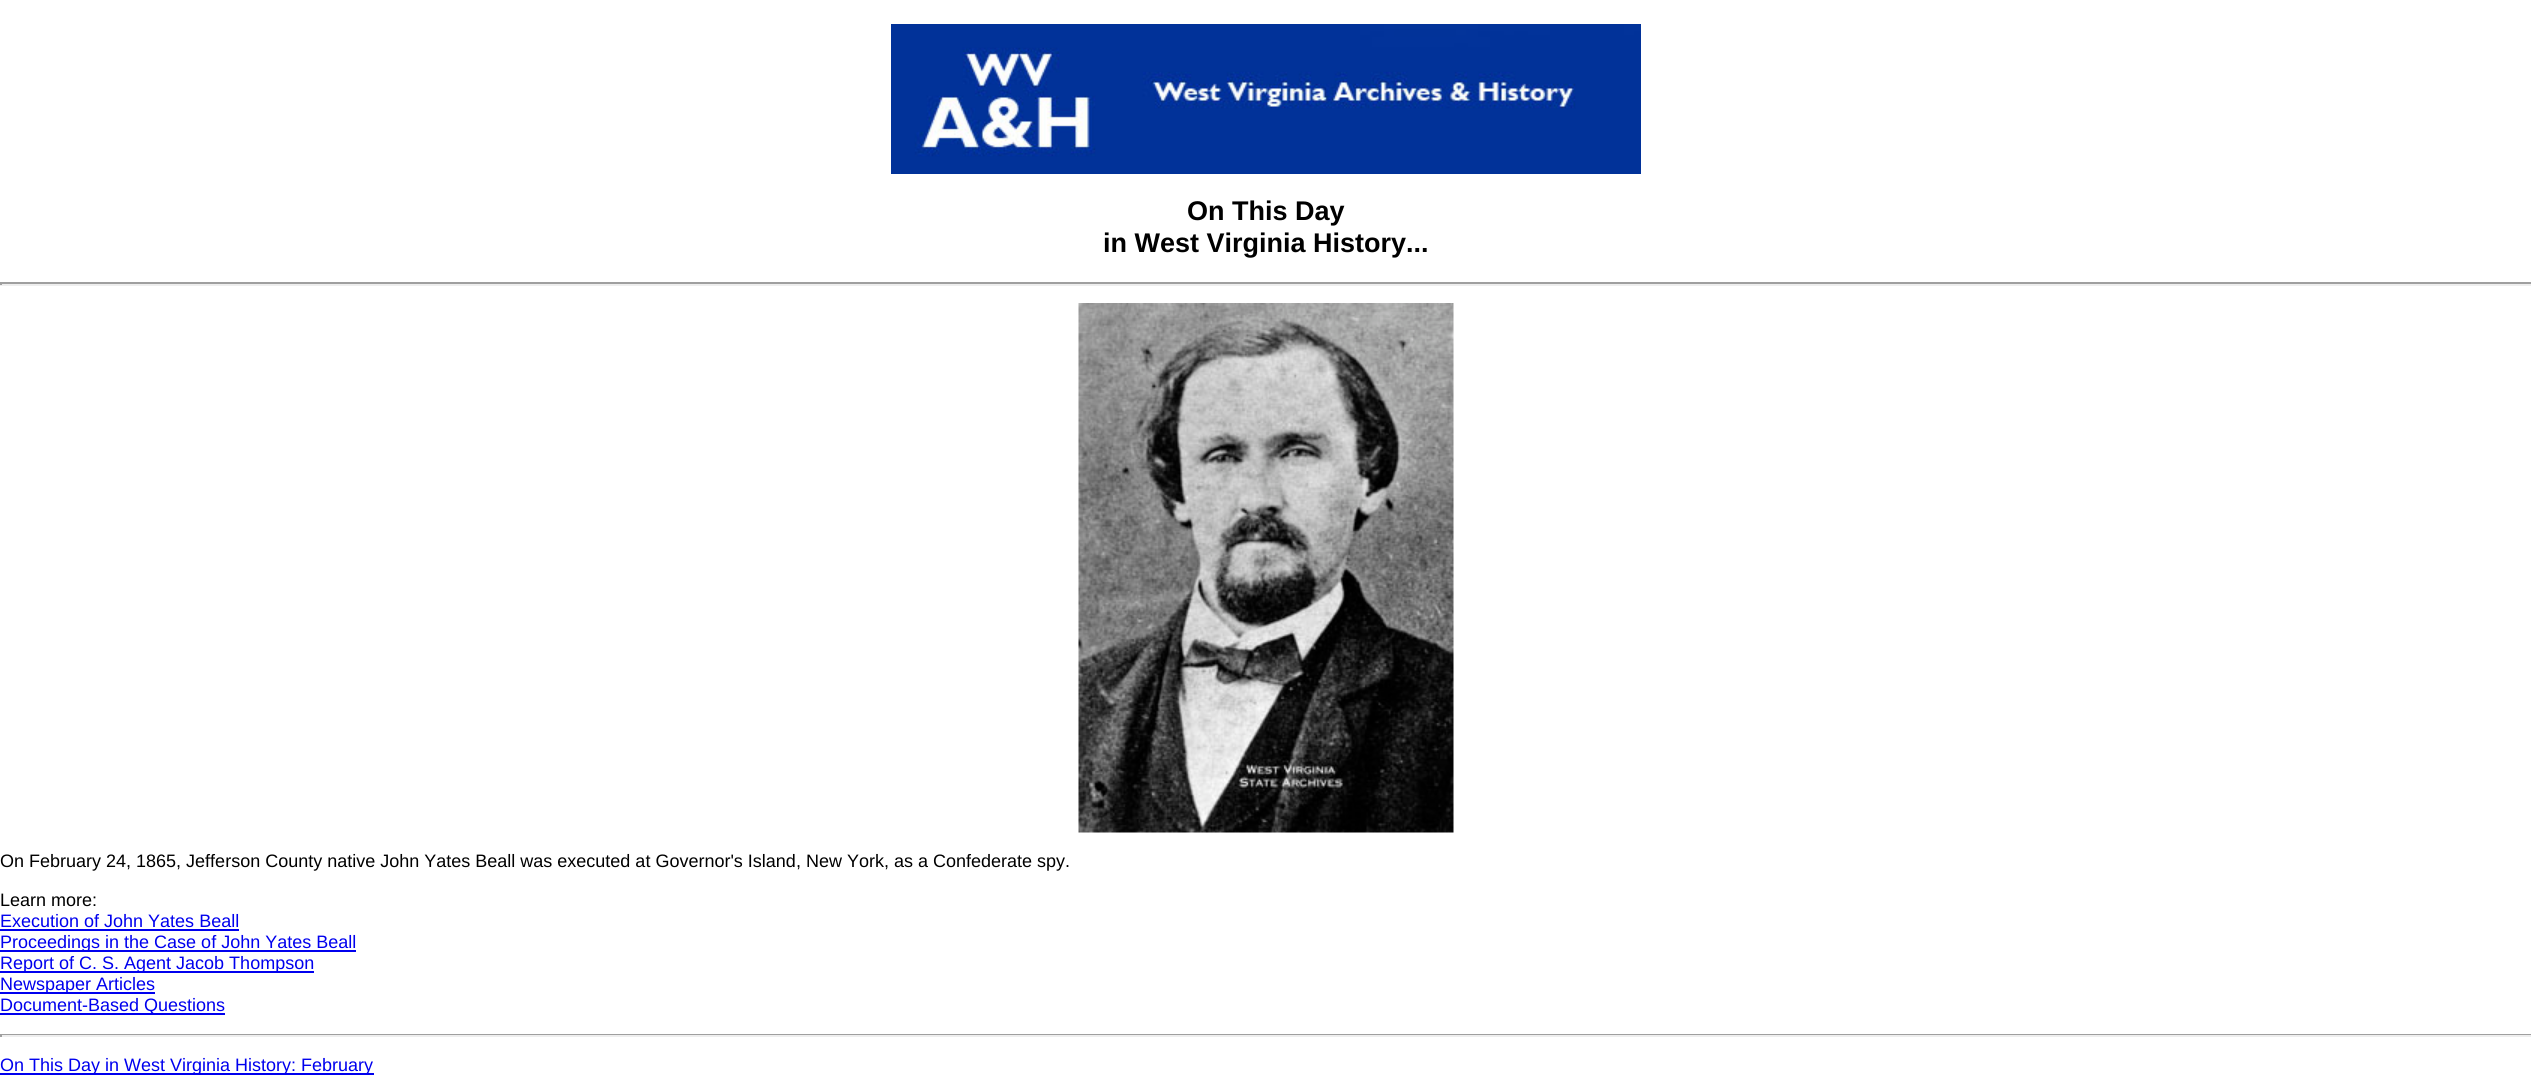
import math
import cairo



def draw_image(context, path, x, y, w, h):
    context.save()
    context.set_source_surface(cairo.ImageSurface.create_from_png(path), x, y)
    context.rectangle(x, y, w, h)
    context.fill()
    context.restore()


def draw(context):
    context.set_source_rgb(1, 1, 1)
    context.paint()
    draw_image(context, "images/1.png", 891, 24, 750, 150)
    context.set_source_rgb(159 / 255, 159 / 255, 159 / 255)
    context.rectangle(0, 282, 2531, 2)
    context.fill()
    context.set_source_rgb(238 / 255, 238 / 255, 238 / 255)
    context.rectangle(0, 284, 2531, 2)
    context.fill()
    context.set_source_rgb(159 / 255, 159 / 255, 159 / 255)
    context.rectangle(0, 282, 2, 3)
    context.fill()
    draw_image(context, "images/2.png", 1078, 303, 376, 530)
    context.set_source_rgb(0, 0, 238 / 255)
    context.rectangle(0, 929, 239, 2)
    context.fill()
    context.rectangle(0, 950, 356, 2)
    context.fill()
    context.rectangle(0, 971, 314, 2)
    context.fill()
    context.rectangle(0, 992, 155, 2)
    context.fill()
    context.rectangle(0, 1013, 225, 2)
    context.fill()
    context.set_source_rgb(159 / 255, 159 / 255, 159 / 255)
    context.rectangle(0, 1034, 2531, 1)
    context.fill()
    context.set_source_rgb(238 / 255, 238 / 255, 238 / 255)
    context.rectangle(0, 1035, 2531, 2)
    context.fill()
    context.set_source_rgb(159 / 255, 159 / 255, 159 / 255)
    context.rectangle(0, 1034, 2, 3)
    context.fill()
    context.set_source_rgb(0, 0, 238 / 255)
    context.rectangle(0, 1073, 374, 2)
    context.fill()
    context.select_font_face("Liberation Sans", cairo.FontSlant.NORMAL, cairo.FontWeight.BOLD)
    context.set_font_size(27)
    context.set_source_rgb(0, 0, 0)
    context.move_to(1187, 220)
    context.show_text("On This Day")
    context.move_to(1103, 252)
    context.show_text("in West Virginia History...")
    context.select_font_face("Liberation Sans")
    context.set_font_size(18)
    context.move_to(0, 867)
    context.show_text("On February 24, 1865, Jefferson County native John Yates Beall was executed at Governor's Island, New York, as a Confederate spy.")
    context.move_to(0, 906)
    context.show_text("Learn more:")
    context.set_source_rgb(0, 0, 238 / 255)
    context.move_to(0, 927)
    context.show_text("Execution of John Yates Beall")
    context.move_to(0, 948)
    context.show_text("Proceedings in the Case of John Yates Beall")
    context.move_to(0, 969)
    context.show_text("Report of C. S. Agent Jacob Thompson")
    context.move_to(0, 990)
    context.show_text("Newspaper Articles")
    context.move_to(0, 1011)
    context.show_text("Document-Based Questions")
    context.move_to(0, 1071)
    context.show_text("On This Day in West Virginia History: February")


surface = cairo.ImageSurface(cairo.Format.RGB24, 2531, 1085)
context = cairo.Context(surface)
options = cairo.FontOptions()
options.set_hint_metrics(cairo.HintMetrics.OFF)
options.set_hint_style(cairo.HintStyle.NONE)
context.set_font_options(options)
context.set_miter_limit(4)
draw(context)
surface.write_to_png("out.png")
